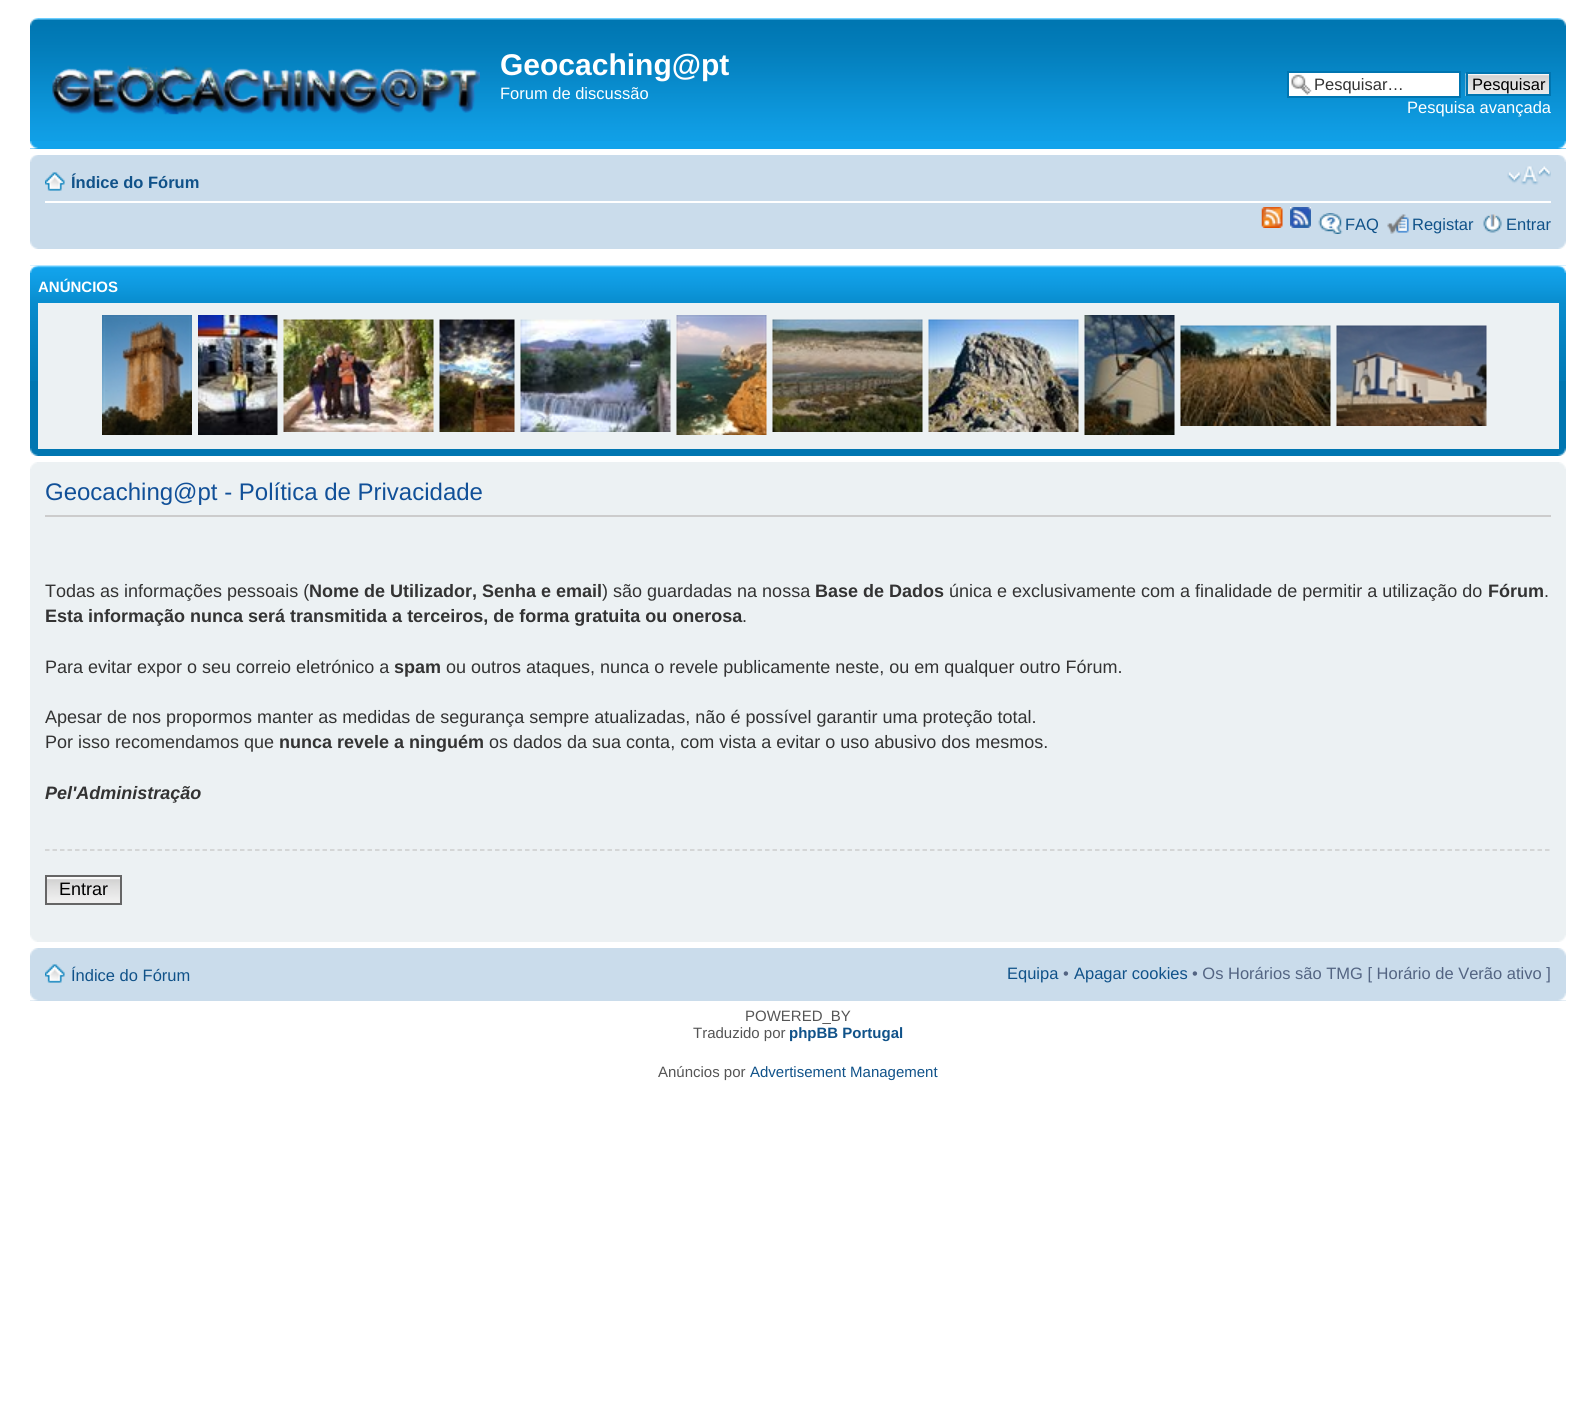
import math
import cairo



def draw_image(context, path, x, y, w, h):
    context.save()
    context.set_source_surface(cairo.ImageSurface.create_from_png(path), x, y)
    context.rectangle(x, y, w, h)
    context.fill()
    context.restore()


def draw(context):
    context.set_source_rgb(1, 1, 1)
    context.paint()
    context.set_source_rgb(18 / 255, 163 / 255, 235 / 255)
    context.rectangle(30, 141, 1536, 8)
    context.fill()
    draw_image(context, "images/1.png", 30, 18, 1536, 123)
    draw_image(context, "images/2.png", 30, 18, 8, 8)
    draw_image(context, "images/3.png", 1558, 18, 8, 8)
    draw_image(context, "images/4.png", 52, 65, 428, 50)
    context.set_source_rgb(1, 1, 1)
    context.rectangle(1289, 73, 170, 23)
    context.fill()
    draw_image(context, "images/5.png", 1291, 74, 21, 21)
    context.rectangle(1288, 72, 172, 25)
    context.set_source_rgb(0, 117 / 255, 176 / 255)
    context.stroke()
    draw_image(context, "images/6.png", 1465, 73, 84, 23)
    context.rectangle(1467, 73, 83, 22)
    context.stroke()
    draw_image(context, "images/7.png", 30, 141, 8, 8)
    draw_image(context, "images/8.png", 1558, 141, 8, 8)
    context.set_source_rgb(202 / 255, 220 / 255, 235 / 255)
    context.rectangle(30, 155, 1536, 94)
    context.fill()
    draw_image(context, "images/9.png", 30, 155, 8, 7)
    draw_image(context, "images/10.png", 1558, 155, 8, 7)
    context.set_source_rgb(1, 1, 1)
    context.rectangle(45, 201, 1506, 2)
    context.fill()
    draw_image(context, "images/11.png", 45, 172, 20, 19)
    draw_image(context, "images/12.png", 1507, 166, 44, 19)
    draw_image(context, "images/13.png", 1261, 207, 22, 21)
    draw_image(context, "images/14.png", 1290, 207, 21, 21)
    draw_image(context, "images/15.png", 1318, 213, 25, 21)
    draw_image(context, "images/16.png", 1387, 214, 22, 20)
    draw_image(context, "images/17.png", 1483, 214, 19, 19)
    draw_image(context, "images/18.png", 30, 241, 8, 8)
    draw_image(context, "images/19.png", 1558, 241, 8, 8)
    context.set_source_rgb(0, 118 / 255, 177 / 255)
    context.rectangle(30, 381, 1536, 75)
    context.fill()
    draw_image(context, "images/20.png", 30, 265, 1536, 116)
    draw_image(context, "images/21.png", 30, 265, 8, 8)
    draw_image(context, "images/22.png", 1558, 265, 8, 8)
    context.set_source_rgb(236 / 255, 241 / 255, 243 / 255)
    context.rectangle(38, 303, 1521, 146)
    context.fill()
    draw_image(context, "images/23.png", 102, 315, 1385, 120)
    draw_image(context, "images/24.png", 30, 448, 8, 8)
    draw_image(context, "images/25.png", 1558, 448, 8, 8)
    context.rectangle(30, 462, 1536, 480)
    context.fill()
    draw_image(context, "images/26.png", 30, 462, 7, 7)
    draw_image(context, "images/27.png", 1559, 462, 7, 7)
    context.set_source_rgb(204 / 255, 204 / 255, 204 / 255)
    context.rectangle(45, 515, 1506, 2)
    context.fill()
    context.new_path()
    context.move_to(45, 850)
    context.line_to(1551, 850)
    context.set_line_width(1.5)
    context.set_dash([4.5, 3])
    context.stroke()
    draw_image(context, "images/28.png", 47, 879, 73, 24)
    context.set_source_rgb(250 / 255, 250 / 255, 250 / 255)
    context.rectangle(47, 877, 73, 2)
    context.fill()
    context.rectangle(46, 876, 75, 28)
    context.set_source_rgb(102 / 255, 102 / 255, 102 / 255)
    context.set_line_width(2)
    context.set_dash([])
    context.stroke()
    draw_image(context, "images/29.png", 30, 935, 7, 7)
    draw_image(context, "images/30.png", 1559, 935, 7, 7)
    context.set_source_rgb(202 / 255, 220 / 255, 235 / 255)
    context.rectangle(30, 948, 1536, 53)
    context.fill()
    draw_image(context, "images/31.png", 30, 948, 8, 8)
    draw_image(context, "images/32.png", 1558, 948, 8, 8)
    draw_image(context, "images/11.png", 45, 964, 20, 19)
    draw_image(context, "images/33.png", 30, 993, 8, 8)
    draw_image(context, "images/34.png", 1558, 993, 8, 8)
    context.select_font_face("Liberation Sans", cairo.FontSlant.NORMAL, cairo.FontWeight.BOLD)
    context.set_font_size(30)
    context.set_source_rgb(1, 1, 1)
    context.move_to(500, 75)
    context.show_text("Geocaching@pt")
    context.select_font_face("Liberation Sans")
    context.set_font_size(16.5)
    context.move_to(500, 99)
    context.show_text("Forum de discussão")
    context.set_source_rgb(51 / 255, 51 / 255, 51 / 255)
    context.move_to(1314, 90)
    context.show_text("Pesquisar…")
    context.set_source_rgb(0, 0, 0)
    context.move_to(1472, 90)
    context.show_text("Pesquisar")
    context.set_source_rgb(1, 1, 1)
    context.move_to(1407, 113)
    context.show_text("Pesquisa avançada")
    context.select_font_face("Liberation Sans", cairo.FontSlant.NORMAL, cairo.FontWeight.BOLD)
    context.set_source_rgb(16 / 255, 82 / 255, 137 / 255)
    context.move_to(71, 188)
    context.show_text("Índice do Fórum")
    context.select_font_face("Liberation Sans")
    context.move_to(1345, 230)
    context.show_text("FAQ")
    context.move_to(1412, 230)
    context.show_text("Registar")
    context.move_to(1506, 230)
    context.show_text("Entrar")
    context.select_font_face("Liberation Sans", cairo.FontSlant.NORMAL, cairo.FontWeight.BOLD)
    context.set_font_size(15)
    context.set_source_rgb(1, 1, 1)
    context.move_to(38, 292)
    context.show_text("ANÚNCIOS")
    context.select_font_face("Liberation Sans")
    context.set_font_size(24)
    context.set_source_rgb(17 / 255, 80 / 255, 152 / 255)
    context.move_to(45, 500)
    context.show_text("Geocaching@pt - Política de Privacidade")
    context.set_font_size(18)
    context.set_source_rgb(51 / 255, 51 / 255, 51 / 255)
    context.move_to(45, 597)
    context.show_text("Todas as informações pessoais (")
    context.select_font_face("Liberation Sans", cairo.FontSlant.NORMAL, cairo.FontWeight.BOLD)
    context.move_to(309, 597)
    context.show_text("Nome de Utilizador, Senha e email")
    context.select_font_face("Liberation Sans")
    context.move_to(602, 597)
    context.show_text(") são guardadas na nossa")
    context.select_font_face("Liberation Sans", cairo.FontSlant.NORMAL, cairo.FontWeight.BOLD)
    context.move_to(815, 597)
    context.show_text("Base de Dados")
    context.select_font_face("Liberation Sans")
    context.move_to(949, 597)
    context.show_text("única e exclusivamente com a finalidade de permitir a utilização do")
    context.select_font_face("Liberation Sans", cairo.FontSlant.NORMAL, cairo.FontWeight.BOLD)
    context.move_to(1488, 597)
    context.show_text("Fórum")
    context.select_font_face("Liberation Sans")
    context.move_to(1544, 597)
    context.show_text(".")
    context.select_font_face("Liberation Sans", cairo.FontSlant.NORMAL, cairo.FontWeight.BOLD)
    context.move_to(45, 622)
    context.show_text("Esta informação nunca será transmitida a terceiros, de forma gratuita ou onerosa")
    context.select_font_face("Liberation Sans")
    context.move_to(742, 622)
    context.show_text(".")
    context.move_to(45, 673)
    context.show_text("Para evitar expor o seu correio eletrónico a")
    context.select_font_face("Liberation Sans", cairo.FontSlant.NORMAL, cairo.FontWeight.BOLD)
    context.move_to(394, 673)
    context.show_text("spam")
    context.select_font_face("Liberation Sans")
    context.move_to(446, 673)
    context.show_text("ou outros ataques, nunca o revele publicamente neste, ou em qualquer outro Fórum.")
    context.move_to(45, 723)
    context.show_text("Apesar de nos propormos manter as medidas de segurança sempre atualizadas, não é possível garantir uma proteção total.")
    context.move_to(45, 748)
    context.show_text("Por isso recomendamos que")
    context.select_font_face("Liberation Sans", cairo.FontSlant.NORMAL, cairo.FontWeight.BOLD)
    context.move_to(279, 748)
    context.show_text("nunca revele a ninguém")
    context.select_font_face("Liberation Sans")
    context.move_to(489, 748)
    context.show_text("os dados da sua conta, com vista a evitar o uso abusivo dos mesmos.")
    context.select_font_face("Liberation Sans", cairo.FontSlant.ITALIC, cairo.FontWeight.BOLD)
    context.move_to(45, 799)
    context.show_text("Pel'Administração")
    context.select_font_face("Liberation Sans")
    context.set_source_rgb(0, 0, 0)
    context.move_to(59, 895)
    context.show_text("Entrar")
    context.set_font_size(16.5)
    context.set_source_rgb(16 / 255, 82 / 255, 137 / 255)
    context.move_to(71, 981)
    context.show_text("Índice do Fórum")
    context.move_to(1007, 979)
    context.show_text("Equipa")
    context.set_source_rgb(83 / 255, 100 / 255, 130 / 255)
    context.move_to(1063, 979)
    context.show_text("•")
    context.set_source_rgb(16 / 255, 82 / 255, 137 / 255)
    context.move_to(1074, 979)
    context.show_text("Apagar cookies")
    context.set_source_rgb(83 / 255, 100 / 255, 130 / 255)
    context.move_to(1192, 979)
    context.show_text("• Os Horários são TMG [ Horário de Verão ativo ]")
    context.set_font_size(15)
    context.set_source_rgb(85 / 255, 85 / 255, 85 / 255)
    context.move_to(745, 1021)
    context.show_text("POWERED_BY")
    context.move_to(693, 1038)
    context.show_text("Traduzido por")
    context.select_font_face("Liberation Sans", cairo.FontSlant.NORMAL, cairo.FontWeight.BOLD)
    context.set_source_rgb(16 / 255, 82 / 255, 137 / 255)
    context.move_to(789, 1038)
    context.show_text("phpBB Portugal")
    context.select_font_face("Liberation Sans")
    context.set_source_rgb(85 / 255, 85 / 255, 85 / 255)
    context.move_to(658, 1077)
    context.show_text("Anúncios por")
    context.set_source_rgb(16 / 255, 82 / 255, 137 / 255)
    context.move_to(750, 1077)
    context.show_text("Advertisement Management")


surface = cairo.ImageSurface(cairo.Format.RGB24, 1596, 1409)
context = cairo.Context(surface)
options = cairo.FontOptions()
options.set_hint_metrics(cairo.HintMetrics.OFF)
options.set_hint_style(cairo.HintStyle.NONE)
context.set_font_options(options)
context.set_miter_limit(4)
draw(context)
surface.write_to_png("out.png")
